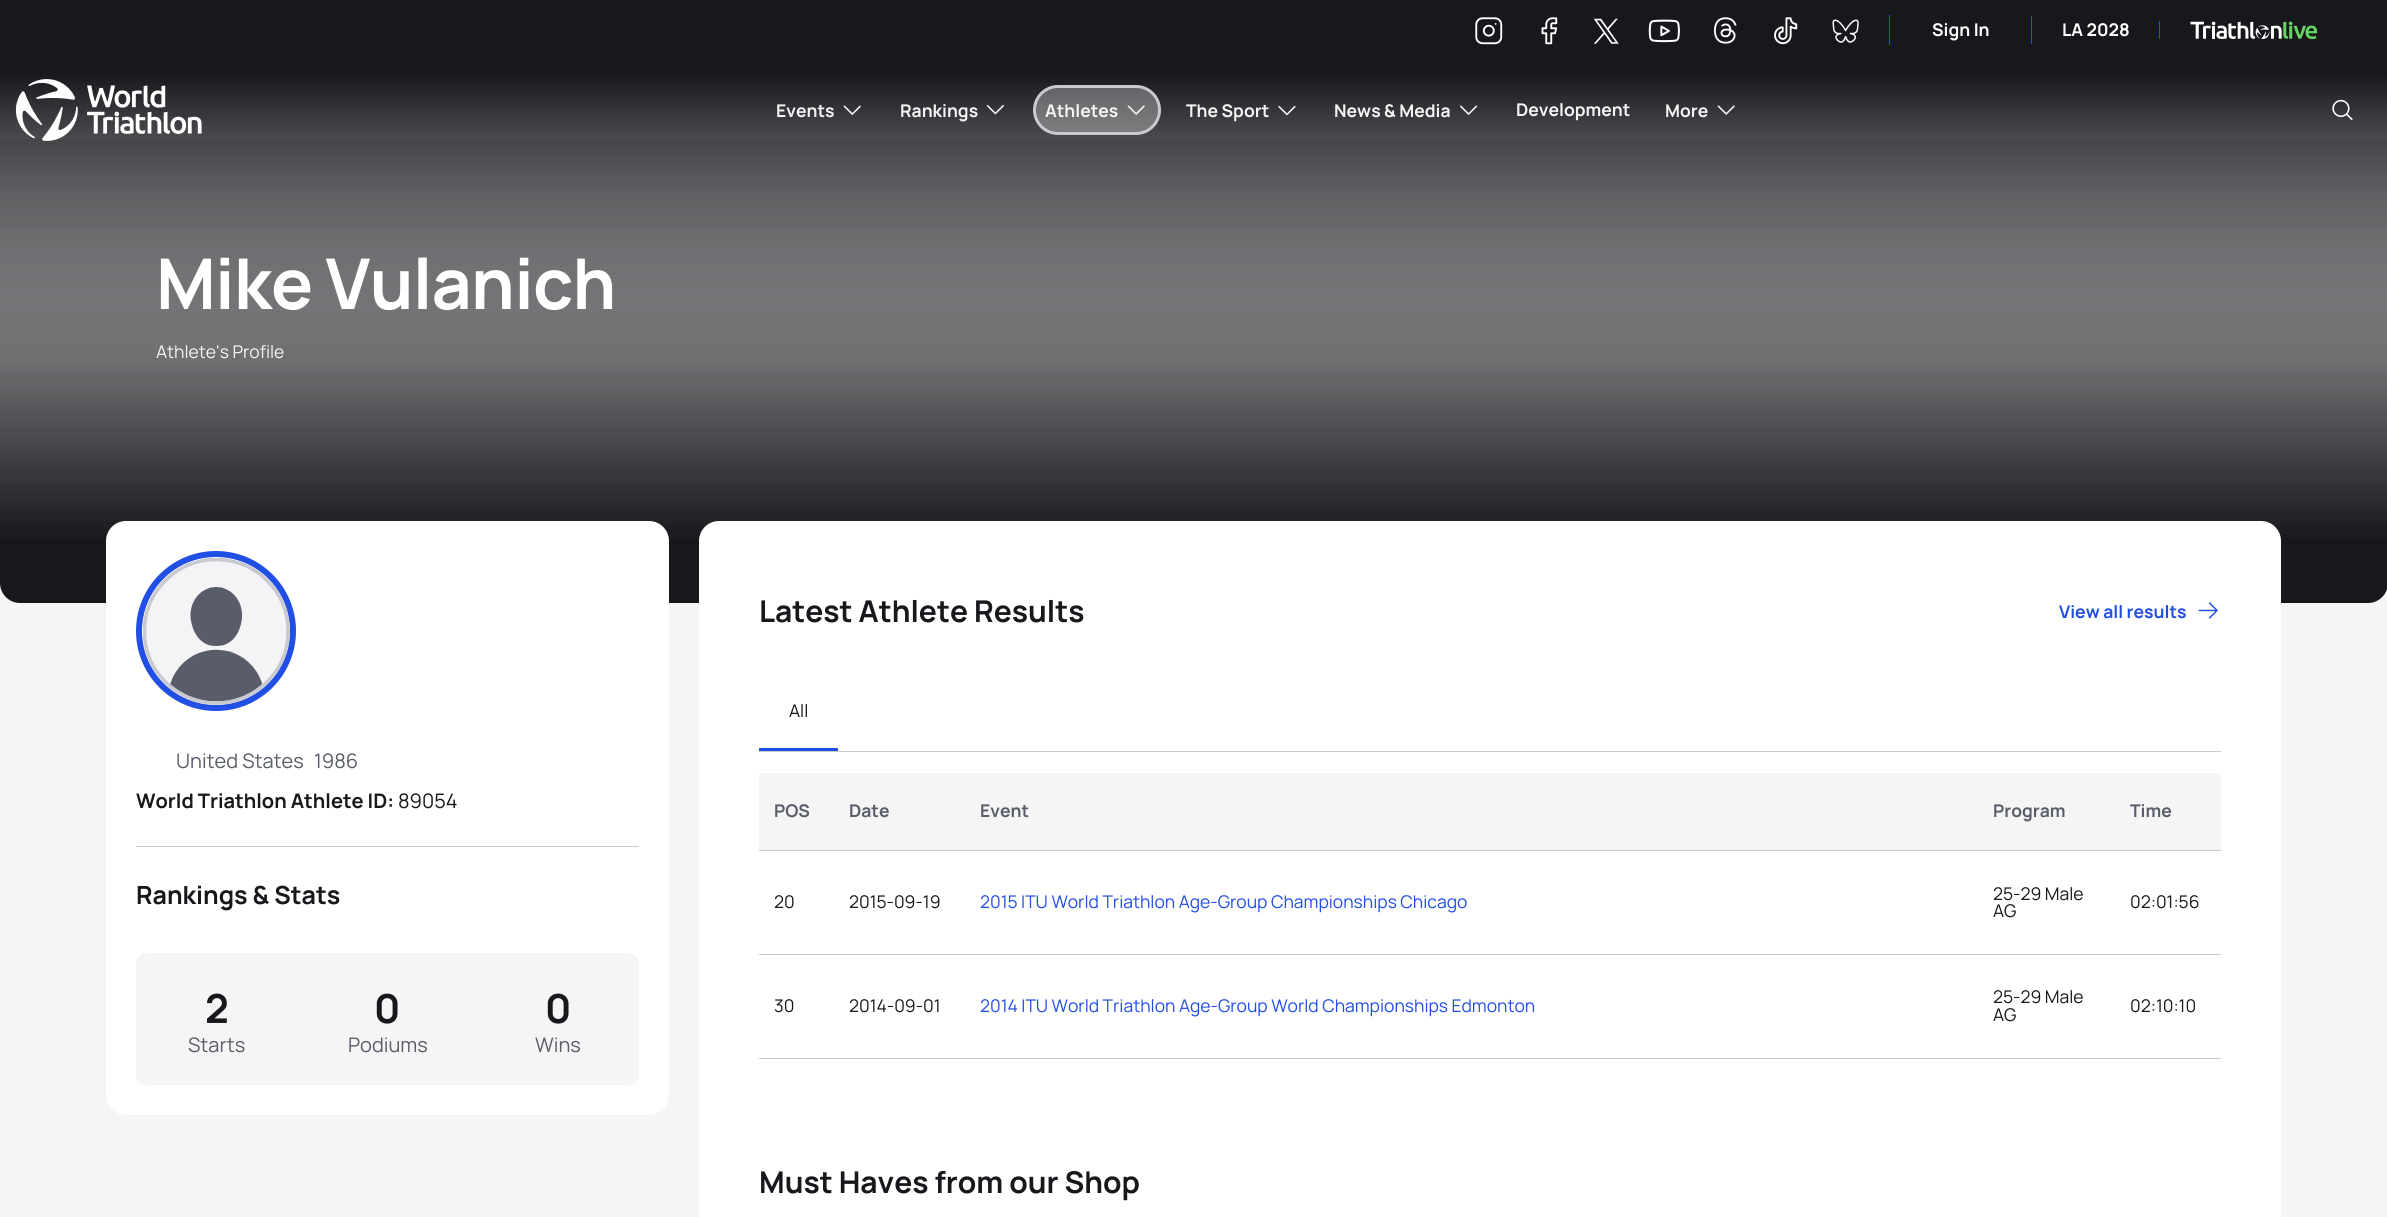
import math
import cairo



def draw_spaced(context, x, y, s, letter, word):
    context.move_to(x, y)
    for ch in s:
        context.show_text(ch)
        context.rel_move_to(letter + word * (ch == ' '), 0)


def rounded_rect(context, x, y, w, h, r):
    context.new_sub_path()
    for i, (u, v) in enumerate([(x + w - r, y + h - r), (x + r, y + h - r), (x + r, y + r), (x + w - r, y + r)]):
        context.arc(u, v, r, i * math.pi / 2, (i + 1) * math.pi / 2)
    context.close_path()


def draw_image(context, path, x, y, w, h):
    context.save()
    context.set_source_surface(cairo.ImageSurface.create_from_png(path), x, y)
    context.rectangle(x, y, w, h)
    context.fill()
    context.restore()


def draw(context):
    context.set_source_rgb(245 / 255, 245 / 255, 245 / 255)
    context.paint()
    gradient = cairo.LinearGradient(1194, 361, 1194, 0)
    gradient.add_color_stop_rgba(0, 244 / 255, 244 / 255, 244 / 255, 1)
    gradient.add_color_stop_rgba(0.8, 23 / 255, 24 / 255, 28 / 255, 1)
    context.set_source(gradient)
    context.rectangle(0, 0, 2387, 359)
    context.fill()
    draw_image(context, "images/1.png", 1475, 17, 28, 28)
    draw_image(context, "images/2.png", 1541, 17, 17, 28)
    draw_image(context, "images/3.png", 1593, 18, 26, 26)
    draw_image(context, "images/4.png", 1648, 19, 32, 24)
    draw_image(context, "images/5.png", 1714, 17, 23, 27)
    draw_image(context, "images/6.png", 1774, 17, 24, 28)
    draw_image(context, "images/7.png", 1832, 19, 27, 24)
    context.set_source_rgb(33 / 255, 78 / 255, 228 / 255)
    context.rectangle(1889, 15, 1, 30)
    context.fill()
    context.rectangle(2031, 16, 1, 28)
    context.fill()
    context.rectangle(2159, 21, 1, 18)
    context.fill()
    draw_image(context, "images/8.png", 2190, 21, 128, 19)
    gradient = cairo.LinearGradient(1194, 86, 1194, 603)
    gradient.add_color_stop_rgba(0, 23 / 255, 24 / 255, 28 / 255, 0)
    gradient.add_color_stop_rgba(0.88, 23 / 255, 24 / 255, 28 / 255, 1)
    context.set_source(gradient)
    context.new_path()
    context.move_to(0, 139)
    context.line_to(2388, 139)
    context.line_to(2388, 583)
    context.curve_to(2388, 594, 2379, 603, 2368, 603)
    context.line_to(20, 603)
    context.curve_to(9, 603, 0, 594, 0, 583)
    context.close_path()
    context.fill()
    draw_image(context, "images/9.png", 15, 79, 187, 62)
    draw_image(context, "images/10.png", 843, 105, 18, 10)
    draw_image(context, "images/11.png", 986, 105, 18, 10)
    context.set_source_rgba(1, 1, 1, 0.3)
    rounded_rect(context, 1034.5, 86.5, 125, 47, 23.5)
    context.fill_preserve()
    context.set_source_rgb(200 / 255, 202 / 255, 208 / 255)
    context.set_line_width(3)
    context.stroke()
    draw_image(context, "images/12.png", 1127, 105, 18, 10)
    draw_image(context, "images/13.png", 1278, 105, 18, 11)
    draw_image(context, "images/14.png", 1460, 105, 18, 10)
    draw_image(context, "images/15.png", 1717, 105, 18, 10)
    draw_image(context, "images/16.png", 2332, 99, 21, 22)
    context.set_source_rgb(1, 1, 1)
    rounded_rect(context, 106, 521, 563, 594, 20)
    context.fill()
    context.arc(216, 631, 77, 0, 2 * math.pi)
    context.set_source_rgb(33 / 255, 78 / 255, 228 / 255)
    context.set_line_width(6)
    context.stroke()
    draw_image(context, "images/17.png", 143, 558, 147, 147)
    context.set_source_rgb(200 / 255, 202 / 255, 208 / 255)
    context.rectangle(136, 846, 503, 1)
    context.fill()
    context.set_source_rgb(245 / 255, 245 / 255, 245 / 255)
    rounded_rect(context, 136, 953, 503, 132, 10)
    context.fill()
    context.set_source_rgb(1, 1, 1)
    rounded_rect(context, 699, 521, 1582, 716, 20)
    context.fill()
    draw_image(context, "images/18.png", 2198, 602, 20, 17)
    context.set_source_rgb(33 / 255, 78 / 255, 228 / 255)
    context.rectangle(759, 748, 79, 3)
    context.fill()
    context.set_source_rgb(200 / 255, 202 / 255, 208 / 255)
    context.rectangle(759, 751, 1462, 1)
    context.fill()
    context.rectangle(759, 850, 1462, 1)
    context.fill()
    context.set_source_rgb(245 / 255, 245 / 255, 245 / 255)
    context.rectangle(759, 773, 1462, 77)
    context.fill()
    context.set_source_rgb(200 / 255, 202 / 255, 208 / 255)
    context.rectangle(759, 954, 1462, 1)
    context.fill()
    context.rectangle(759, 1058, 1462, 1)
    context.fill()
    context.select_font_face("Manrope", cairo.FontSlant.NORMAL, cairo.FontWeight.BOLD)
    context.set_font_size(17.5)
    context.set_source_rgb(1, 1, 1)
    context.move_to(1932, 36)
    context.show_text("Sign In")
    context.move_to(2062, 36)
    context.show_text("LA 2028")
    context.set_source_rgb(245 / 255, 245 / 255, 245 / 255)
    context.move_to(776, 117)
    context.show_text("Events")
    context.move_to(900, 117)
    context.show_text("Rankings")
    context.move_to(1045, 117)
    context.show_text("Athletes")
    context.move_to(1186, 117)
    context.show_text("The Sport")
    context.move_to(1334, 117)
    context.show_text("News & Media")
    context.move_to(1516, 116)
    context.show_text("Development")
    context.move_to(1665, 117)
    context.show_text("More")
    context.set_font_size(70)
    context.set_source_rgb(1, 1, 1)
    draw_spaced(context, 156, 309, "Mike Vulanich", -0.75, 0)
    context.select_font_face("Manrope")
    context.set_font_size(17.5)
    context.set_source_rgb(245 / 255, 245 / 255, 245 / 255)
    context.move_to(156, 358)
    context.show_text("Athlete's Profile")
    context.set_font_size(20)
    context.set_source_rgb(89 / 255, 93 / 255, 105 / 255)
    context.move_to(176, 768)
    context.show_text("United States")
    context.move_to(314, 768)
    context.show_text("1986")
    context.select_font_face("Manrope", cairo.FontSlant.NORMAL, cairo.FontWeight.BOLD)
    context.set_source_rgb(23 / 255, 24 / 255, 28 / 255)
    context.move_to(136, 808)
    context.show_text("World Triathlon Athlete ID:")
    context.select_font_face("Manrope")
    context.move_to(398, 808)
    context.show_text("89054")
    context.select_font_face("Manrope", cairo.FontSlant.NORMAL, cairo.FontWeight.BOLD)
    context.set_font_size(25)
    context.move_to(136, 904)
    context.show_text("Rankings & Stats")
    context.set_font_size(40)
    context.move_to(205, 1023)
    context.show_text("2")
    context.select_font_face("Manrope")
    context.set_font_size(20)
    context.set_source_rgb(89 / 255, 93 / 255, 105 / 255)
    context.move_to(188, 1052)
    context.show_text("Starts")
    context.select_font_face("Manrope", cairo.FontSlant.NORMAL, cairo.FontWeight.BOLD)
    context.set_font_size(40)
    context.set_source_rgb(23 / 255, 24 / 255, 28 / 255)
    context.move_to(374, 1023)
    context.show_text("0")
    context.select_font_face("Manrope")
    context.set_font_size(20)
    context.set_source_rgb(89 / 255, 93 / 255, 105 / 255)
    context.move_to(348, 1052)
    context.show_text("Podiums")
    context.select_font_face("Manrope", cairo.FontSlant.NORMAL, cairo.FontWeight.BOLD)
    context.set_font_size(40)
    context.set_source_rgb(23 / 255, 24 / 255, 28 / 255)
    context.move_to(545, 1023)
    context.show_text("0")
    context.select_font_face("Manrope")
    context.set_font_size(20)
    context.set_source_rgb(89 / 255, 93 / 255, 105 / 255)
    context.move_to(535, 1052)
    context.show_text("Wins")
    context.select_font_face("Manrope", cairo.FontSlant.NORMAL, cairo.FontWeight.BOLD)
    context.set_font_size(30)
    context.set_source_rgb(23 / 255, 24 / 255, 28 / 255)
    context.move_to(759, 622)
    context.show_text("Latest Athlete Results")
    context.set_font_size(17.5)
    context.set_source_rgb(33 / 255, 78 / 255, 228 / 255)
    context.move_to(2059, 618)
    context.show_text("View all results")
    context.select_font_face("Manrope")
    context.set_source_rgb(23 / 255, 24 / 255, 28 / 255)
    context.move_to(789, 717)
    context.show_text("All")
    context.select_font_face("Manrope", cairo.FontSlant.NORMAL, cairo.FontWeight.BOLD)
    context.set_source_rgb(89 / 255, 93 / 255, 105 / 255)
    context.move_to(774, 817)
    context.show_text("POS")
    context.move_to(849, 817)
    context.show_text("Date")
    context.move_to(980, 817)
    context.show_text("Event")
    context.move_to(1993, 817)
    context.show_text("Program")
    context.move_to(2130, 817)
    context.show_text("Time")
    context.select_font_face("Manrope")
    context.set_source_rgb(23 / 255, 24 / 255, 28 / 255)
    context.move_to(774, 908)
    context.show_text("20")
    context.move_to(849, 908)
    context.show_text("2015-09-19")
    context.set_source_rgb(33 / 255, 78 / 255, 228 / 255)
    context.move_to(980, 908)
    context.show_text("2015 ITU World Triathlon Age-Group Championships Chicago")
    context.set_source_rgb(23 / 255, 24 / 255, 28 / 255)
    context.move_to(1993, 900)
    context.show_text("25-29 Male")
    context.move_to(1993, 917)
    context.show_text("AG")
    context.move_to(2130, 908)
    context.show_text("02:01:56")
    context.move_to(774, 1012)
    context.show_text("30")
    context.move_to(849, 1012)
    context.show_text("2014-09-01")
    context.set_source_rgb(33 / 255, 78 / 255, 228 / 255)
    context.move_to(980, 1012)
    context.show_text("2014 ITU World Triathlon Age-Group World Championships Edmonton")
    context.set_source_rgb(23 / 255, 24 / 255, 28 / 255)
    context.move_to(1993, 1003)
    context.show_text("25-29 Male")
    context.move_to(1993, 1021)
    context.show_text("AG")
    context.move_to(2130, 1012)
    context.show_text("02:10:10")
    context.select_font_face("Manrope", cairo.FontSlant.NORMAL, cairo.FontWeight.BOLD)
    context.set_font_size(30)
    context.move_to(759, 1193)
    context.show_text("Must Haves from our Shop")


surface = cairo.ImageSurface(cairo.Format.RGB24, 2387, 1217)
context = cairo.Context(surface)
options = cairo.FontOptions()
options.set_hint_metrics(cairo.HintMetrics.OFF)
options.set_hint_style(cairo.HintStyle.NONE)
context.set_font_options(options)
context.set_miter_limit(4)
draw(context)
surface.write_to_png("out.png")
